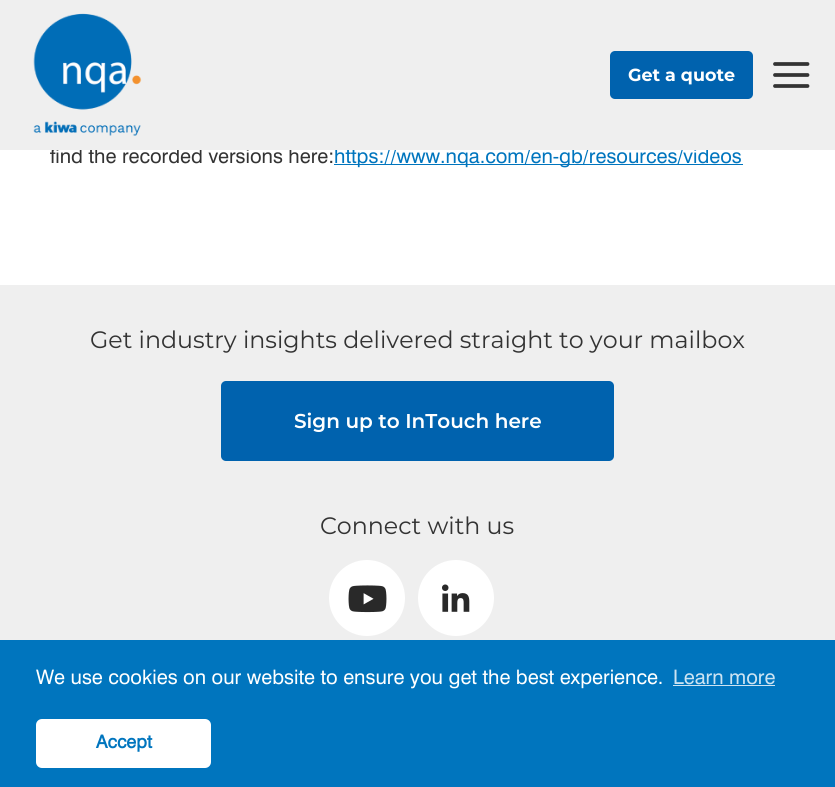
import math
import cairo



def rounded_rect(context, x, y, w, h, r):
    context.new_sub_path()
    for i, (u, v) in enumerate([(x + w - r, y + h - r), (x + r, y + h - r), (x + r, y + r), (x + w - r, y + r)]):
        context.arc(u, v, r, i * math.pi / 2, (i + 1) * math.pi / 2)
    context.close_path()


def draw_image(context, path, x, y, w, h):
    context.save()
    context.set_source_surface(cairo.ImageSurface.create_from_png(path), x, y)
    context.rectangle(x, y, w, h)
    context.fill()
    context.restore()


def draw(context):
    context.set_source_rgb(1, 1, 1)
    context.paint()
    context.set_source_rgb(0, 117 / 255, 190 / 255)
    context.rectangle(334, 164, 409, 1)
    context.fill()
    context.set_source_rgb(239 / 255, 239 / 255, 239 / 255)
    context.rectangle(0, 285, 835, 355)
    context.fill()
    context.set_source_rgb(0, 98 / 255, 174 / 255)
    rounded_rect(context, 221, 381, 393, 80, 5)
    context.fill()
    context.set_source_rgb(1, 1, 1)
    context.arc(367, 598, 38, 0, 2 * math.pi)
    context.fill()
    draw_image(context, "images/2.png", 348, 585, 39, 28)
    context.arc(456, 598, 38, 0, 2 * math.pi)
    context.fill()
    draw_image(context, "images/3.png", 442, 584, 28, 28)
    context.set_source_rgb(0, 117 / 255, 190 / 255)
    context.rectangle(0, 640, 835, 147)
    context.fill()
    context.set_source_rgb(204 / 255, 227 / 255, 242 / 255)
    context.rectangle(673, 685, 102, 1)
    context.fill()
    context.set_source_rgb(1, 1, 1)
    rounded_rect(context, 36, 719, 175, 49, 6)
    context.fill()
    context.select_font_face("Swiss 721")
    context.set_font_size(20)
    context.set_source_rgb(51 / 255, 51 / 255, 51 / 255)
    context.move_to(50, 163)
    context.show_text("find the recorded versions here:")
    context.set_source_rgb(0, 117 / 255, 190 / 255)
    context.move_to(334, 163)
    context.show_text("https://www.nqa.com/en-gb/resources/videos")
    context.set_source_rgb(239 / 255, 239 / 255, 239 / 255)
    context.rectangle(0, 0, 835, 150)
    context.fill()
    context.new_path()
    context.move_to(775, 64)
    context.line_to(807.5, 64)
    context.move_to(775, 75)
    context.line_to(807.5, 75)
    context.move_to(775, 86)
    context.line_to(807.5, 86)
    context.set_source_rgb(51 / 255, 51 / 255, 51 / 255)
    context.set_line_width(3.8)
    context.set_line_cap(cairo.LineCap.ROUND)
    context.stroke()
    context.set_source_rgb(0, 98 / 255, 174 / 255)
    rounded_rect(context, 610, 51, 143, 48, 5)
    context.fill()
    context.select_font_face("Montserrat", cairo.FontSlant.NORMAL, cairo.FontWeight.BOLD)
    context.set_font_size(17.5)
    context.set_source_rgb(1, 1, 1)
    context.move_to(628, 81)
    context.show_text("Get a quote")
    draw_image(context, "images/1.png", 33, 13, 109, 123)
    context.select_font_face("Montserrat")
    context.set_font_size(23.75)
    context.set_source_rgb(51 / 255, 51 / 255, 51 / 255)
    context.move_to(90, 348)
    context.show_text("Get industry insights delivered straight to your mailbox")
    context.select_font_face("Montserrat SemiBold")
    context.set_font_size(20)
    context.set_source_rgb(1, 1, 1)
    context.move_to(294, 428)
    context.show_text("Sign up to InTouch here")
    context.select_font_face("Montserrat")
    context.set_font_size(23.75)
    context.set_source_rgb(51 / 255, 51 / 255, 51 / 255)
    context.move_to(320, 534)
    context.show_text("Connect with us")
    context.select_font_face("Swiss 721")
    context.set_font_size(20)
    context.set_source_rgb(1, 1, 1)
    context.move_to(36, 684)
    context.show_text("We use cookies on our website to ensure you get the best experience.")
    context.set_source_rgb(204 / 255, 227 / 255, 242 / 255)
    context.move_to(673, 684)
    context.show_text("Learn more")
    context.select_font_face("Swiss 721", cairo.FontSlant.NORMAL, cairo.FontWeight.BOLD)
    context.set_font_size(18)
    context.set_source_rgb(0, 117 / 255, 190 / 255)
    context.move_to(96, 748)
    context.show_text("Accept")


surface = cairo.ImageSurface(cairo.Format.RGB24, 835, 787)
context = cairo.Context(surface)
options = cairo.FontOptions()
options.set_hint_metrics(cairo.HintMetrics.OFF)
options.set_hint_style(cairo.HintStyle.NONE)
context.set_font_options(options)
context.set_miter_limit(4)
draw(context)
surface.write_to_png("out.png")
